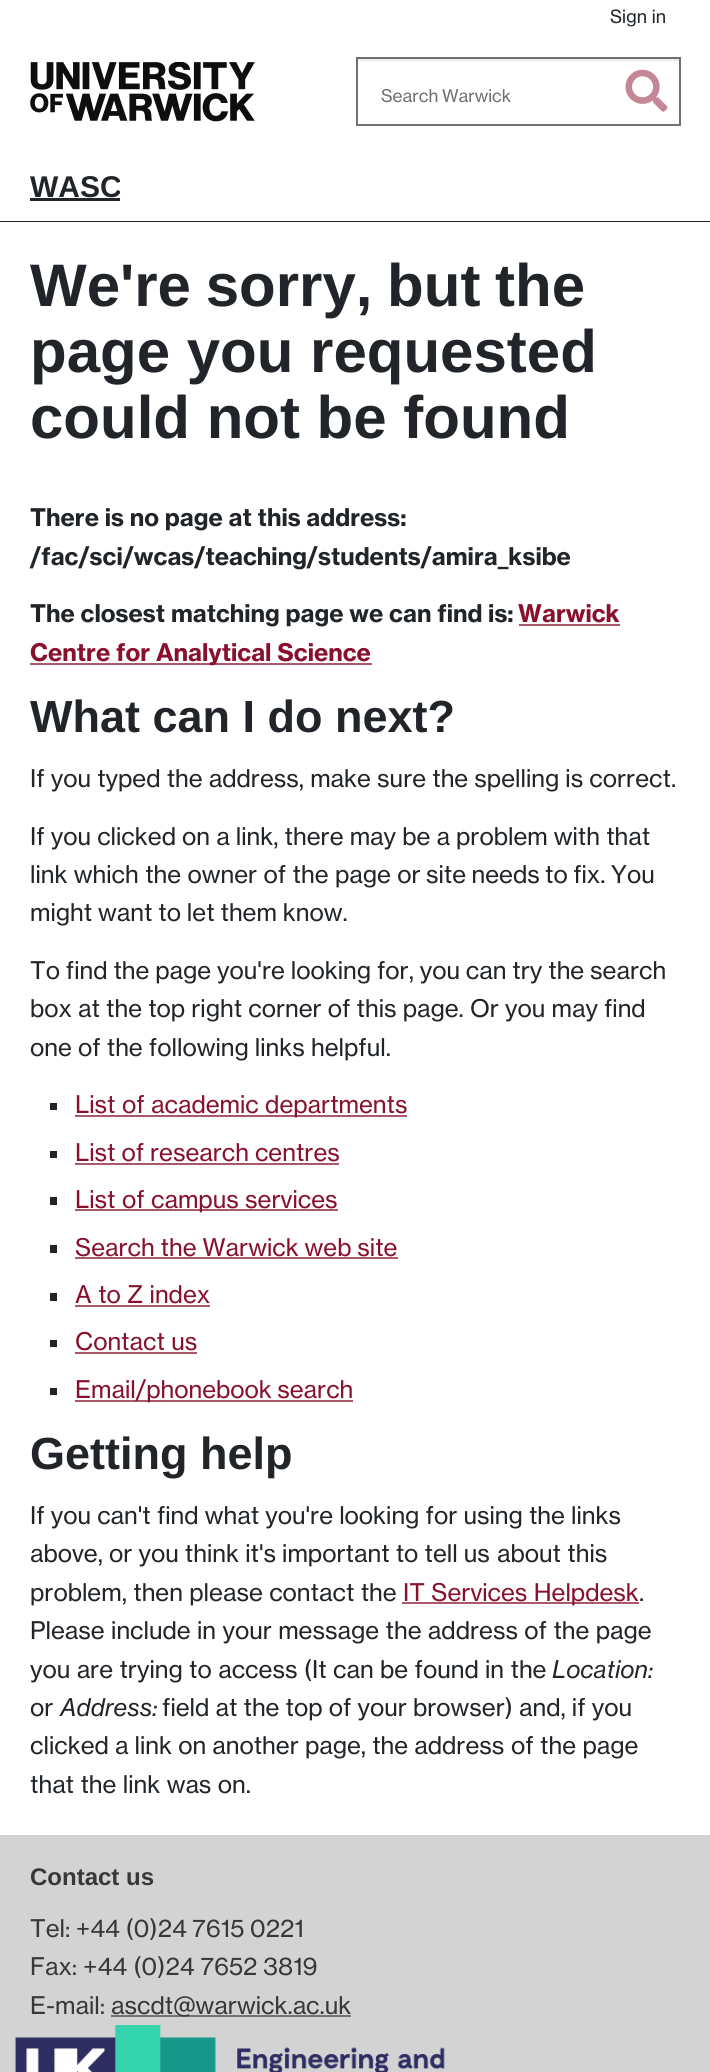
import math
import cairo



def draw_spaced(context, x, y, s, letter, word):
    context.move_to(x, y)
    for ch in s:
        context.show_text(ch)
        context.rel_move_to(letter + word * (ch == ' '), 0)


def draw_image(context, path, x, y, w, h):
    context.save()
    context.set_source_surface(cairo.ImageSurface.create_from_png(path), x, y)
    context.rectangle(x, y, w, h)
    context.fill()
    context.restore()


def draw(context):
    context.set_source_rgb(1, 1, 1)
    context.paint()
    context.set_source_rgb(33 / 255, 37 / 255, 41 / 255)
    context.rectangle(0, 221, 710, 1)
    context.fill()
    draw_image(context, "images/1.png", 30, 62, 225, 60)
    context.set_source_rgb(236 / 255, 236 / 255, 236 / 255)
    context.rectangle(357, 59, 323, 2)
    context.fill()
    context.rectangle(357, 58, 323, 67)
    context.set_source_rgb(112 / 255, 112 / 255, 112 / 255)
    context.stroke()
    draw_image(context, "images/2.png", 625, 69, 43, 43)
    context.set_source_rgb(33 / 255, 37 / 255, 41 / 255)
    context.rectangle(30, 198, 90, 3)
    context.fill()
    context.set_source_rgb(172 / 255, 88 / 255, 107 / 255)
    context.rectangle(519, 624, 101, 2)
    context.fill()
    context.rectangle(30, 663, 342, 2)
    context.fill()
    context.set_source_rgb(33 / 255, 37 / 255, 41 / 255)
    context.rectangle(50, 1103, 7, 7)
    context.fill()
    context.set_source_rgb(172 / 255, 88 / 255, 107 / 255)
    context.rectangle(75, 1115, 332, 2)
    context.fill()
    context.set_source_rgb(33 / 255, 37 / 255, 41 / 255)
    context.rectangle(50, 1151, 7, 7)
    context.fill()
    context.set_source_rgb(172 / 255, 88 / 255, 107 / 255)
    context.rectangle(75, 1163, 264, 2)
    context.fill()
    context.set_source_rgb(33 / 255, 37 / 255, 41 / 255)
    context.rectangle(50, 1197, 7, 8)
    context.fill()
    context.set_source_rgb(172 / 255, 88 / 255, 107 / 255)
    context.rectangle(75, 1209, 263, 2)
    context.fill()
    context.set_source_rgb(33 / 255, 37 / 255, 41 / 255)
    context.rectangle(50, 1245, 7, 8)
    context.fill()
    context.set_source_rgb(172 / 255, 88 / 255, 107 / 255)
    context.rectangle(75, 1257, 323, 2)
    context.fill()
    context.set_source_rgb(33 / 255, 37 / 255, 41 / 255)
    context.rectangle(50, 1293, 7, 8)
    context.fill()
    context.set_source_rgb(172 / 255, 88 / 255, 107 / 255)
    context.rectangle(75, 1305, 135, 2)
    context.fill()
    context.set_source_rgb(33 / 255, 37 / 255, 41 / 255)
    context.rectangle(50, 1340, 7, 7)
    context.fill()
    context.set_source_rgb(172 / 255, 88 / 255, 107 / 255)
    context.rectangle(75, 1352, 122, 2)
    context.fill()
    context.set_source_rgb(33 / 255, 37 / 255, 41 / 255)
    context.rectangle(50, 1388, 7, 7)
    context.fill()
    context.set_source_rgb(172 / 255, 88 / 255, 107 / 255)
    context.rectangle(75, 1400, 278, 2)
    context.fill()
    context.rectangle(402, 1602, 237, 2)
    context.fill()
    context.set_source_rgb(211 / 255, 211 / 255, 211 / 255)
    context.rectangle(0, 1835, 710, 237)
    context.fill()
    context.set_source_rgb(116 / 255, 116 / 255, 116 / 255)
    context.rectangle(111, 2015, 240, 2)
    context.fill()
    draw_image(context, "images/3.png", 15, 2025, 430, 47)
    context.select_font_face("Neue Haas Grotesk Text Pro")
    context.set_font_size(18)
    context.set_source_rgb(33 / 255, 37 / 255, 41 / 255)
    context.move_to(610, 23)
    context.show_text("Sign in")
    context.set_font_size(17.25)
    context.set_source_rgb(112 / 255, 112 / 255, 112 / 255)
    draw_spaced(context, 381, 102, "Search Warwick", 0, -1)
    context.save()
    context.rectangle(23, 152, 97, 69)
    context.clip()
    context.select_font_face("Liberation Sans", cairo.FontSlant.NORMAL, cairo.FontWeight.BOLD)
    context.set_font_size(30)
    context.set_source_rgb(33 / 255, 37 / 255, 41 / 255)
    context.move_to(30, 197)
    context.show_text("WASC")
    context.restore()
    context.select_font_face("Liberation Sans", cairo.FontSlant.NORMAL, cairo.FontWeight.BOLD)
    context.set_font_size(60)
    context.set_source_rgb(33 / 255, 37 / 255, 41 / 255)
    draw_spaced(context, 30, 306, "We're sorry, but the", 0, -2)
    context.move_to(30, 372)
    context.show_text("page you requested")
    context.move_to(30, 438)
    context.show_text("could not be found")
    context.select_font_face("Neue Haas Grotesk Text Pro", cairo.FontSlant.NORMAL, cairo.FontWeight.BOLD)
    context.set_font_size(24)
    context.move_to(30, 526)
    context.show_text("There is no page at this address:")
    context.move_to(30, 565)
    context.show_text("/fac/sci/wcas/teaching/students/amira_ksibe")
    context.move_to(30, 622)
    context.show_text("The closest matching page we can find is:")
    context.set_source_rgb(136 / 255, 16 / 255, 44 / 255)
    context.move_to(518, 622)
    context.show_text("Warwick")
    context.move_to(30, 661)
    context.show_text("Centre for Analytical Science")
    context.select_font_face("Liberation Sans", cairo.FontSlant.NORMAL, cairo.FontWeight.BOLD)
    context.set_font_size(45)
    context.set_source_rgb(33 / 255, 37 / 255, 41 / 255)
    context.move_to(30, 732)
    context.show_text("What can I do next?")
    context.select_font_face("Neue Haas Grotesk Text Pro")
    context.set_font_size(24)
    draw_spaced(context, 30, 787, "If you typed the address, make sure the spelling is correct.", 0, -0.25)
    draw_spaced(context, 30, 845, "If you clicked on a link, there may be a problem with that", 0, -0.25)
    context.move_to(30, 883)
    context.show_text("link which the owner of the page or")
    draw_spaced(context, 426, 883, "site needs to fix. You", 0, -1)
    draw_spaced(context, 30, 921, "might want to let them know.", 0, -0.5)
    draw_spaced(context, 30, 979, "To find the page you're looking for, you can try the search", 0, -0.5)
    draw_spaced(context, 30, 1017, "box at the top right corner of this page.", 0, -0.25)
    draw_spaced(context, 470, 1017, "Or you may find", 0, -0.25)
    draw_spaced(context, 30, 1056, "one of the following links helpful.", 0, -0.25)
    context.set_source_rgb(136 / 255, 16 / 255, 44 / 255)
    context.move_to(75, 1113)
    context.show_text("List of academic departments")
    draw_spaced(context, 75, 1161, "List of research centres", 0, -0.5)
    context.move_to(75, 1208)
    context.show_text("List of campus services")
    draw_spaced(context, 75, 1256, "Search the Warwick web site", 0, -0.5)
    context.move_to(75, 1303)
    context.show_text("A to Z index")
    context.move_to(75, 1350)
    context.show_text("Contact us")
    draw_spaced(context, 75, 1398, "Email/phonebook search", 0, -1)
    context.select_font_face("Liberation Sans", cairo.FontSlant.NORMAL, cairo.FontWeight.BOLD)
    context.set_font_size(45)
    context.set_source_rgb(33 / 255, 37 / 255, 41 / 255)
    context.move_to(30, 1469)
    context.show_text("Getting help")
    context.select_font_face("Neue Haas Grotesk Text Pro")
    context.set_font_size(24)
    draw_spaced(context, 30, 1524, "If you can't find what you're looking for using the links", 0, -0.25)
    draw_spaced(context, 30, 1562, "above, or you think it's important to tell us", 0, -0.25)
    context.move_to(497, 1562)
    context.show_text("about this")
    context.move_to(30, 1601)
    context.show_text("problem, then please contact the")
    context.set_source_rgb(136 / 255, 16 / 255, 44 / 255)
    context.move_to(403, 1601)
    context.show_text("IT Services Helpdesk")
    context.set_source_rgb(33 / 255, 37 / 255, 41 / 255)
    context.move_to(639, 1601)
    context.show_text(".")
    context.move_to(30, 1639)
    context.show_text("Please include in your message the address of the page")
    context.move_to(30, 1678)
    context.show_text("you are trying to access (It can be found in the")
    context.select_font_face("Neue Haas Grotesk Text Pro", cairo.FontSlant.ITALIC)
    context.move_to(552, 1678)
    context.show_text("Location:")
    context.select_font_face("Neue Haas Grotesk Text Pro")
    context.move_to(30, 1716)
    context.show_text("or")
    context.select_font_face("Neue Haas Grotesk Text Pro", cairo.FontSlant.ITALIC)
    context.move_to(60, 1716)
    context.show_text("Address:")
    context.select_font_face("Neue Haas Grotesk Text Pro")
    draw_spaced(context, 162, 1716, "field at the top of your browser) and, if you", 0, -0.25)
    draw_spaced(context, 30, 1754, "clicked a link on another page, the address", 0, -0.25)
    context.move_to(511, 1754)
    context.show_text("of the page")
    context.move_to(30, 1793)
    context.show_text("that the link was on.")
    context.select_font_face("Liberation Sans", cairo.FontSlant.NORMAL, cairo.FontWeight.BOLD)
    context.set_source_rgb(56 / 255, 56 / 255, 56 / 255)
    context.move_to(30, 1885)
    context.show_text("Contact us")
    context.select_font_face("Neue Haas Grotesk Text Pro")
    draw_spaced(context, 30, 1937, "Tel: +44 (0)24 7615 0221", 0, -1)
    draw_spaced(context, 30, 1975, "Fax: +44 (0)24 7652 3819", 0, -0.5)
    context.move_to(30, 2014)
    context.show_text("E-mail:")
    context.move_to(111, 2014)
    context.show_text("ascdt@warwick.ac.uk")


surface = cairo.ImageSurface(cairo.Format.RGB24, 710, 2072)
context = cairo.Context(surface)
options = cairo.FontOptions()
options.set_hint_metrics(cairo.HintMetrics.OFF)
options.set_hint_style(cairo.HintStyle.NONE)
context.set_font_options(options)
context.set_miter_limit(4)
draw(context)
surface.write_to_png("out.png")
